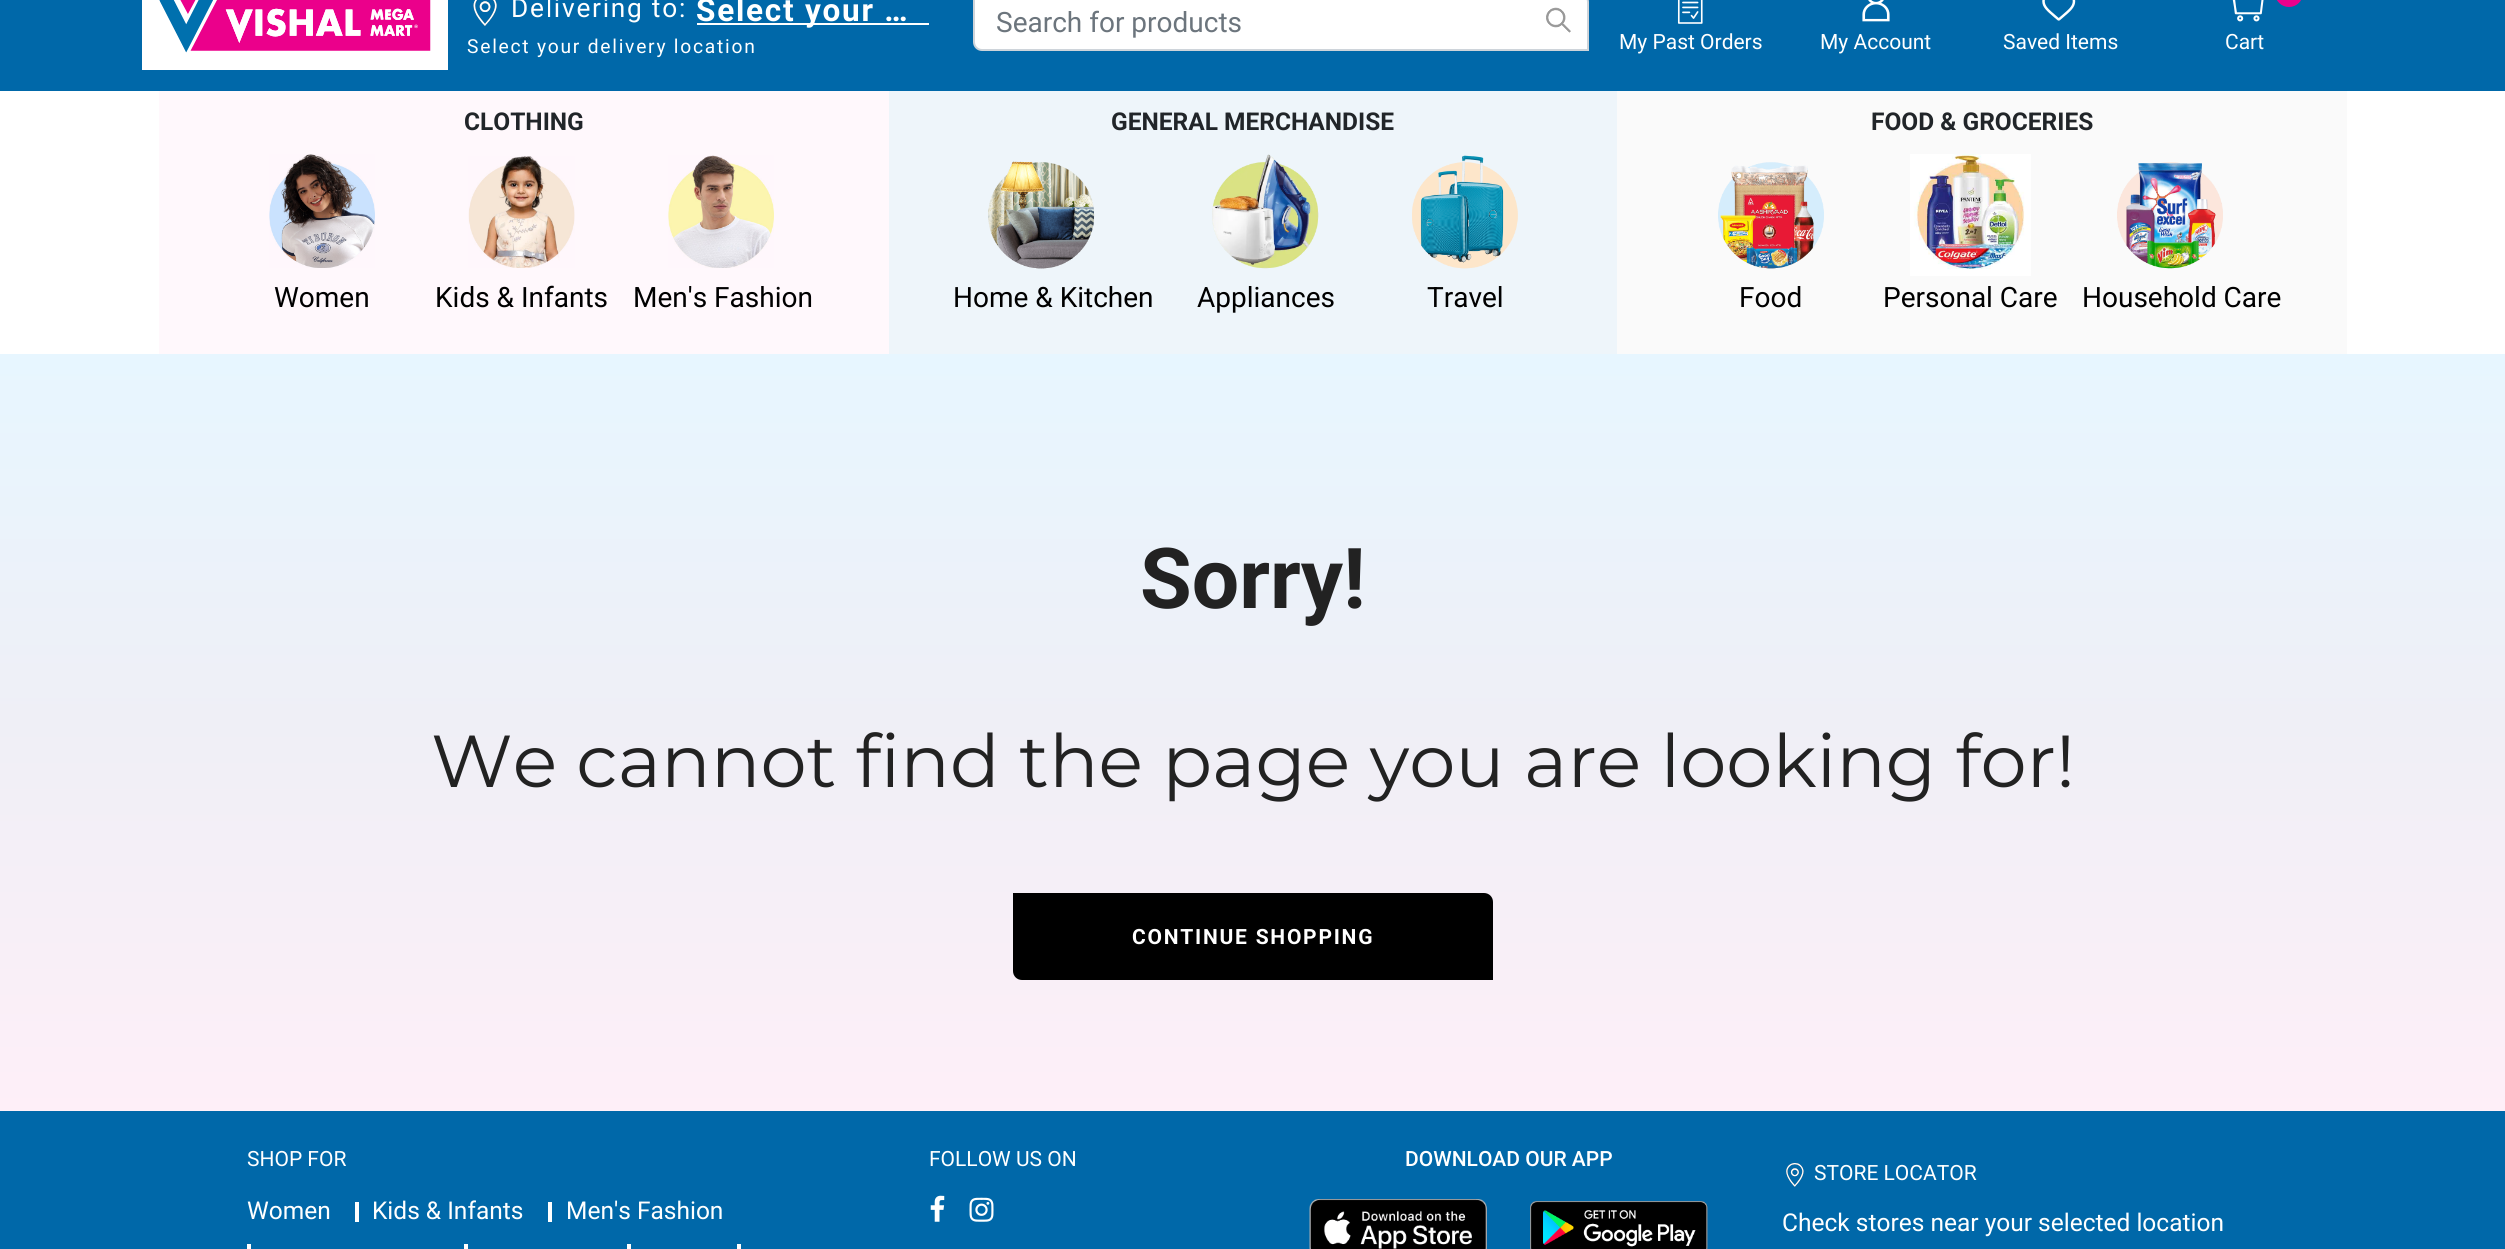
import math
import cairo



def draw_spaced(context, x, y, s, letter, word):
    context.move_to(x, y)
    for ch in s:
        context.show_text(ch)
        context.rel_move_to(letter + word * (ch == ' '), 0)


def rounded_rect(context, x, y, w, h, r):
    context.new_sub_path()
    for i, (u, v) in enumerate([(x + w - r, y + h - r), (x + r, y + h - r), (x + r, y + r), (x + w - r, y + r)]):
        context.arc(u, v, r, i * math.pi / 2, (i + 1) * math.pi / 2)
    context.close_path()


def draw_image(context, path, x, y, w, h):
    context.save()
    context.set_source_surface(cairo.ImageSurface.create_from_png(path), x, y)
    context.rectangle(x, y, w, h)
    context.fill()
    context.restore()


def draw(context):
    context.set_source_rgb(1, 1, 1)
    context.paint()
    context.set_source_rgb(0, 104 / 255, 169 / 255)
    context.rectangle(0, 0, 2505, 91)
    context.fill()
    context.set_source_rgb(1, 1, 1)
    context.rectangle(142, 0, 306, 70)
    context.fill()
    draw_image(context, "images/1.png", 159, 0, 272, 53)
    draw_image(context, "images/2.png", 473, 0, 24, 26)
    context.rectangle(697, 23, 232, 2)
    context.fill()
    context.new_path()
    context.move_to(974, -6)
    context.line_to(1580, -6)
    context.curve_to(1584.5, -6, 1588, -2.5, 1588, 2)
    context.line_to(1588, 50)
    context.line_to(982, 50)
    context.curve_to(977.5, 50, 974, 46.5, 974, 42)
    context.close_path()
    context.fill_preserve()
    context.set_source_rgb(206 / 255, 212 / 255, 218 / 255)
    context.stroke()
    draw_image(context, "images/3.png", 1546, 7, 25, 26)
    draw_image(context, "images/4.png", 1677, 0, 26, 24)
    draw_image(context, "images/5.png", 1862, 0, 28, 22)
    draw_image(context, "images/6.png", 2042, 0, 34, 21)
    context.set_source_rgb(236 / 255, 0, 140 / 255)
    rounded_rect(context, 2275, -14, 28, 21, 14)
    context.fill()
    draw_image(context, "images/7.png", 2232, 0, 32, 22)
    context.set_source_rgb(1, 248 / 255, 252 / 255)
    context.rectangle(159, 91, 730, 263)
    context.fill()
    draw_image(context, "images/8.png", 269, 154, 106, 114)
    draw_image(context, "images/9.png", 468, 156, 107, 112)
    draw_image(context, "images/10.png", 668, 155, 106, 113)
    context.set_source_rgb(238 / 255, 245 / 255, 250 / 255)
    context.rectangle(889, 91, 728, 263)
    context.fill()
    draw_image(context, "images/11.png", 988, 161, 107, 108)
    draw_image(context, "images/12.png", 1212, 154, 107, 115)
    draw_image(context, "images/13.png", 1412, 155, 106, 114)
    context.set_source_rgb(250 / 255, 250 / 255, 250 / 255)
    context.rectangle(1617, 91, 730, 263)
    context.fill()
    draw_image(context, "images/14.png", 1718, 162, 106, 107)
    draw_image(context, "images/15.png", 1910, 154, 121, 122)
    draw_image(context, "images/16.png", 2117, 162, 106, 107)
    gradient = cairo.LinearGradient(1253, 353, 1253, 1111)
    gradient.add_color_stop_rgba(0, 231 / 255, 246 / 255, 1, 1)
    gradient.add_color_stop_rgba(0.49, 239 / 255, 239 / 255, 246 / 255, 1)
    gradient.add_color_stop_rgba(1, 254 / 255, 239 / 255, 248 / 255, 1)
    context.set_source(gradient)
    context.rectangle(0, 354, 2505, 757)
    context.fill()
    context.set_source_rgb(0, 0, 0)
    context.new_path()
    context.move_to(1014, 894)
    context.line_to(1484, 894)
    context.curve_to(1488.5, 894, 1492, 897.5, 1492, 902)
    context.line_to(1492, 979)
    context.line_to(1022, 979)
    context.curve_to(1017.5, 979, 1014, 975.5, 1014, 971)
    context.close_path()
    context.fill_preserve()
    context.stroke()
    context.set_source_rgb(0, 104 / 255, 169 / 255)
    context.rectangle(0, 1111, 2505, 138)
    context.fill()
    context.set_source_rgb(1, 1, 1)
    context.rectangle(355, 1202, 4, 20)
    context.fill()
    context.rectangle(548, 1202, 4, 20)
    context.fill()
    context.rectangle(247, 1244, 4, 5)
    context.fill()
    context.rectangle(464, 1244, 4, 5)
    context.fill()
    context.rectangle(627, 1244, 4, 5)
    context.fill()
    context.rectangle(737, 1244, 4, 5)
    context.fill()
    draw_image(context, "images/17.png", 930, 1195, 15, 27)
    draw_image(context, "images/18.png", 969, 1197, 25, 25)
    draw_image(context, "images/19.png", 1309, 1199, 178, 50)
    draw_image(context, "images/20.png", 1530, 1201, 178, 48)
    draw_image(context, "images/21.png", 1786, 1163, 18, 24)
    context.select_font_face("Roboto")
    context.set_font_size(26.25)
    draw_spaced(context, 511, 17, "Delivering to:", 1.75, 0)
    context.select_font_face("Roboto", cairo.FontSlant.NORMAL, cairo.FontWeight.BOLD)
    context.set_font_size(31.5)
    draw_spaced(context, 696, 21, "Select your …", 1.75, 0)
    context.select_font_face("Roboto")
    context.set_font_size(19.25)
    draw_spaced(context, 467, 53, "Select your delivery location", 1.75, 0)
    context.set_font_size(28)
    context.set_source_rgb(108 / 255, 117 / 255, 125 / 255)
    context.move_to(996, 32)
    context.show_text("Search for products")
    context.set_font_size(21)
    context.set_source_rgb(1, 1, 1)
    context.move_to(1619, 49)
    context.show_text("My Past Orders")
    context.move_to(1820, 49)
    context.show_text("My Account")
    context.move_to(2003, 49)
    context.show_text("Saved Items")
    context.move_to(2225, 49)
    context.show_text("Cart")
    context.select_font_face("Roboto", cairo.FontSlant.NORMAL, cairo.FontWeight.BOLD)
    context.set_font_size(24.5)
    context.set_source_rgb(33 / 255, 37 / 255, 41 / 255)
    context.move_to(464, 130)
    context.show_text("CLOTHING")
    context.select_font_face("Roboto")
    context.set_font_size(28)
    context.set_source_rgb(0, 0, 0)
    context.move_to(274, 307)
    context.show_text("Women")
    context.move_to(435, 307)
    context.show_text("Kids & Infants")
    context.move_to(633, 307)
    context.show_text("Men's Fashion")
    context.select_font_face("Roboto", cairo.FontSlant.NORMAL, cairo.FontWeight.BOLD)
    context.set_font_size(24.5)
    context.set_source_rgb(33 / 255, 37 / 255, 41 / 255)
    context.move_to(1111, 130)
    context.show_text("GENERAL MERCHANDISE")
    context.select_font_face("Roboto")
    context.set_font_size(28)
    context.set_source_rgb(0, 0, 0)
    context.move_to(953, 307)
    context.show_text("Home & Kitchen")
    context.move_to(1197, 307)
    context.show_text("Appliances")
    context.move_to(1427, 307)
    context.show_text("Travel")
    context.select_font_face("Roboto", cairo.FontSlant.NORMAL, cairo.FontWeight.BOLD)
    context.set_font_size(24.5)
    context.set_source_rgb(33 / 255, 37 / 255, 41 / 255)
    context.move_to(1871, 130)
    context.show_text("FOOD & GROCERIES")
    context.select_font_face("Roboto")
    context.set_font_size(28)
    context.set_source_rgb(0, 0, 0)
    context.move_to(1739, 307)
    context.show_text("Food")
    context.move_to(1883, 307)
    context.show_text("Personal Care")
    context.move_to(2082, 307)
    context.show_text("Household Care")
    context.select_font_face("Roboto", cairo.FontSlant.NORMAL, cairo.FontWeight.BOLD)
    context.set_font_size(84)
    context.set_source_rgb(34 / 255, 34 / 255, 34 / 255)
    context.move_to(1140, 608)
    context.show_text("Sorry!")
    context.select_font_face("Montserrat")
    context.set_font_size(73.5)
    context.move_to(431, 787)
    context.show_text("We cannot find the page you are looking for!")
    context.select_font_face("Roboto", cairo.FontSlant.NORMAL, cairo.FontWeight.BOLD)
    context.set_font_size(21)
    context.set_source_rgb(1, 1, 1)
    draw_spaced(context, 1132, 944, "CONTINUE SHOPPING", 1.75, 0)
    context.select_font_face("Roboto")
    context.move_to(247, 1166)
    context.show_text("SHOP FOR")
    context.set_font_size(24.5)
    context.move_to(247, 1219)
    context.show_text("Women")
    context.move_to(372, 1219)
    context.show_text("Kids & Infants")
    context.move_to(566, 1219)
    context.show_text("Men's Fashion")
    context.set_font_size(21)
    context.move_to(929, 1166)
    context.show_text("FOLLOW US ON")
    context.select_font_face("Roboto Medium")
    context.move_to(1405, 1166)
    context.show_text("DOWNLOAD OUR APP")
    context.select_font_face("Roboto")
    context.move_to(1814, 1180)
    context.show_text("STORE LOCATOR")
    context.set_font_size(24.5)
    context.move_to(1782, 1231)
    context.show_text("Check stores near your selected location")


surface = cairo.ImageSurface(cairo.Format.RGB24, 2505, 1249)
context = cairo.Context(surface)
options = cairo.FontOptions()
options.set_hint_metrics(cairo.HintMetrics.OFF)
options.set_hint_style(cairo.HintStyle.NONE)
context.set_font_options(options)
context.set_miter_limit(4)
draw(context)
surface.write_to_png("out.png")
